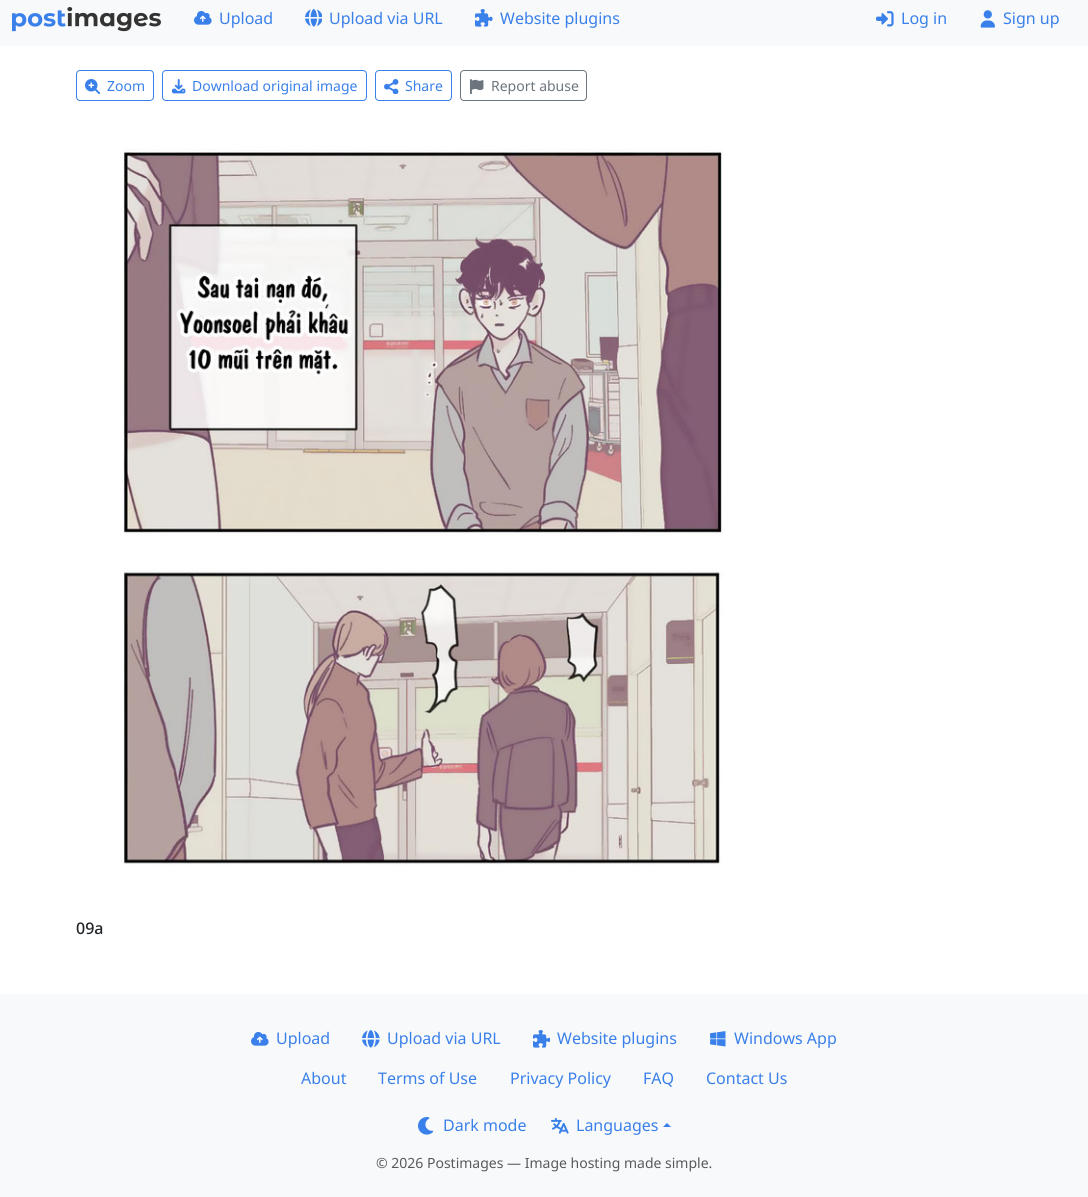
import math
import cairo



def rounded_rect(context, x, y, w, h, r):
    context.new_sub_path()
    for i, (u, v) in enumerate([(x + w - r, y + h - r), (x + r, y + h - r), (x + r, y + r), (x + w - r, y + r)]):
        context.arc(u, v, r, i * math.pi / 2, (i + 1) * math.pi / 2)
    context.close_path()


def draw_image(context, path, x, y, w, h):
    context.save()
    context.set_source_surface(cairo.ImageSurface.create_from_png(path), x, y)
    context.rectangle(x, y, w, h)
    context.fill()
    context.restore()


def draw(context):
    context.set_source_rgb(1, 1, 1)
    context.paint()
    context.set_source_rgb(248 / 255, 249 / 255, 250 / 255)
    context.rectangle(0, 0, 1088, 46)
    context.fill()
    draw_image(context, "images/1.png", 12, 7, 149, 25)
    draw_image(context, "images/2.png", 194, 11, 18, 14)
    draw_image(context, "images/3.png", 305, 9, 17, 18)
    draw_image(context, "images/4.png", 475, 9, 18, 18)
    draw_image(context, "images/5.png", 876, 11, 18, 16)
    draw_image(context, "images/6.png", 980, 10, 15, 18)
    rounded_rect(context, 76.5, 70.5, 77, 30, 3.5)
    context.set_source_rgb(58 / 255, 128 / 255, 234 / 255)
    context.set_line_width(1)
    context.stroke()
    draw_image(context, "images/7.png", 85, 79, 15, 15)
    rounded_rect(context, 162.5, 70.5, 204, 30, 3.5)
    context.stroke()
    draw_image(context, "images/8.png", 171, 79, 15, 15)
    rounded_rect(context, 375.5, 70.5, 76, 30, 3.5)
    context.stroke()
    draw_image(context, "images/9.png", 384, 79, 15, 15)
    rounded_rect(context, 460.5, 70.5, 126, 30, 3.5)
    context.set_source_rgb(108 / 255, 117 / 255, 125 / 255)
    context.stroke()
    draw_image(context, "images/10.png", 469, 79, 15, 15)
    draw_image(context, "images/11.png", 123, 148, 600, 718)
    context.set_source_rgb(248 / 255, 249 / 255, 250 / 255)
    context.rectangle(0, 994, 1088, 203)
    context.fill()
    draw_image(context, "images/2.png", 251, 1032, 18, 14)
    draw_image(context, "images/12.png", 362, 1030, 18, 18)
    draw_image(context, "images/13.png", 533, 1030, 17, 18)
    draw_image(context, "images/14.png", 710, 1031, 16, 16)
    draw_image(context, "images/15.png", 418, 1117, 16, 18)
    draw_image(context, "images/16.png", 551, 1118, 18, 16)
    context.set_source_rgb(58 / 255, 128 / 255, 234 / 255)
    context.new_path()
    context.move_to(671, 1127)
    context.line_to(663, 1127)
    context.line_to(667, 1123)
    context.close_path()
    context.fill()
    context.select_font_face("Noto Sans")
    context.set_font_size(16)
    context.move_to(219, 24)
    context.show_text("Upload")
    context.move_to(329, 24)
    context.show_text("Upload via URL")
    context.move_to(500, 24)
    context.show_text("Website plugins")
    context.move_to(901, 24)
    context.show_text("Log in")
    context.move_to(1003, 24)
    context.show_text("Sign up")
    context.set_font_size(14)
    context.move_to(107, 91)
    context.show_text("Zoom")
    context.move_to(192, 91)
    context.show_text("Download original image")
    context.move_to(405, 91)
    context.show_text("Share")
    context.set_source_rgb(108 / 255, 117 / 255, 125 / 255)
    context.move_to(491, 91)
    context.show_text("Report abuse")
    context.select_font_face("Noto Sans Medium")
    context.set_font_size(16)
    context.set_source_rgb(33 / 255, 37 / 255, 41 / 255)
    context.move_to(76, 934)
    context.show_text("09a")
    context.select_font_face("Noto Sans")
    context.set_source_rgb(58 / 255, 128 / 255, 234 / 255)
    context.move_to(276, 1044)
    context.show_text("Upload")
    context.move_to(387, 1044)
    context.show_text("Upload via URL")
    context.move_to(557, 1044)
    context.show_text("Website plugins")
    context.move_to(734, 1044)
    context.show_text("Windows App")
    context.move_to(301, 1084)
    context.show_text("About")
    context.move_to(378, 1084)
    context.show_text("Terms of Use")
    context.move_to(510, 1084)
    context.show_text("Privacy Policy")
    context.move_to(643, 1084)
    context.show_text("FAQ")
    context.move_to(706, 1084)
    context.show_text("Contact Us")
    context.move_to(443, 1131)
    context.show_text("Dark mode")
    context.move_to(576, 1131)
    context.show_text("Languages")
    context.set_font_size(14)
    context.set_source_rgb(87 / 255, 90 / 255, 93 / 255)
    context.move_to(376, 1168)
    context.show_text("© 2026 Postimages — Image hosting made simple.")


surface = cairo.ImageSurface(cairo.Format.RGB24, 1088, 1197)
context = cairo.Context(surface)
options = cairo.FontOptions()
options.set_hint_metrics(cairo.HintMetrics.OFF)
options.set_hint_style(cairo.HintStyle.NONE)
context.set_font_options(options)
context.set_miter_limit(4)
draw(context)
surface.write_to_png("out.png")
